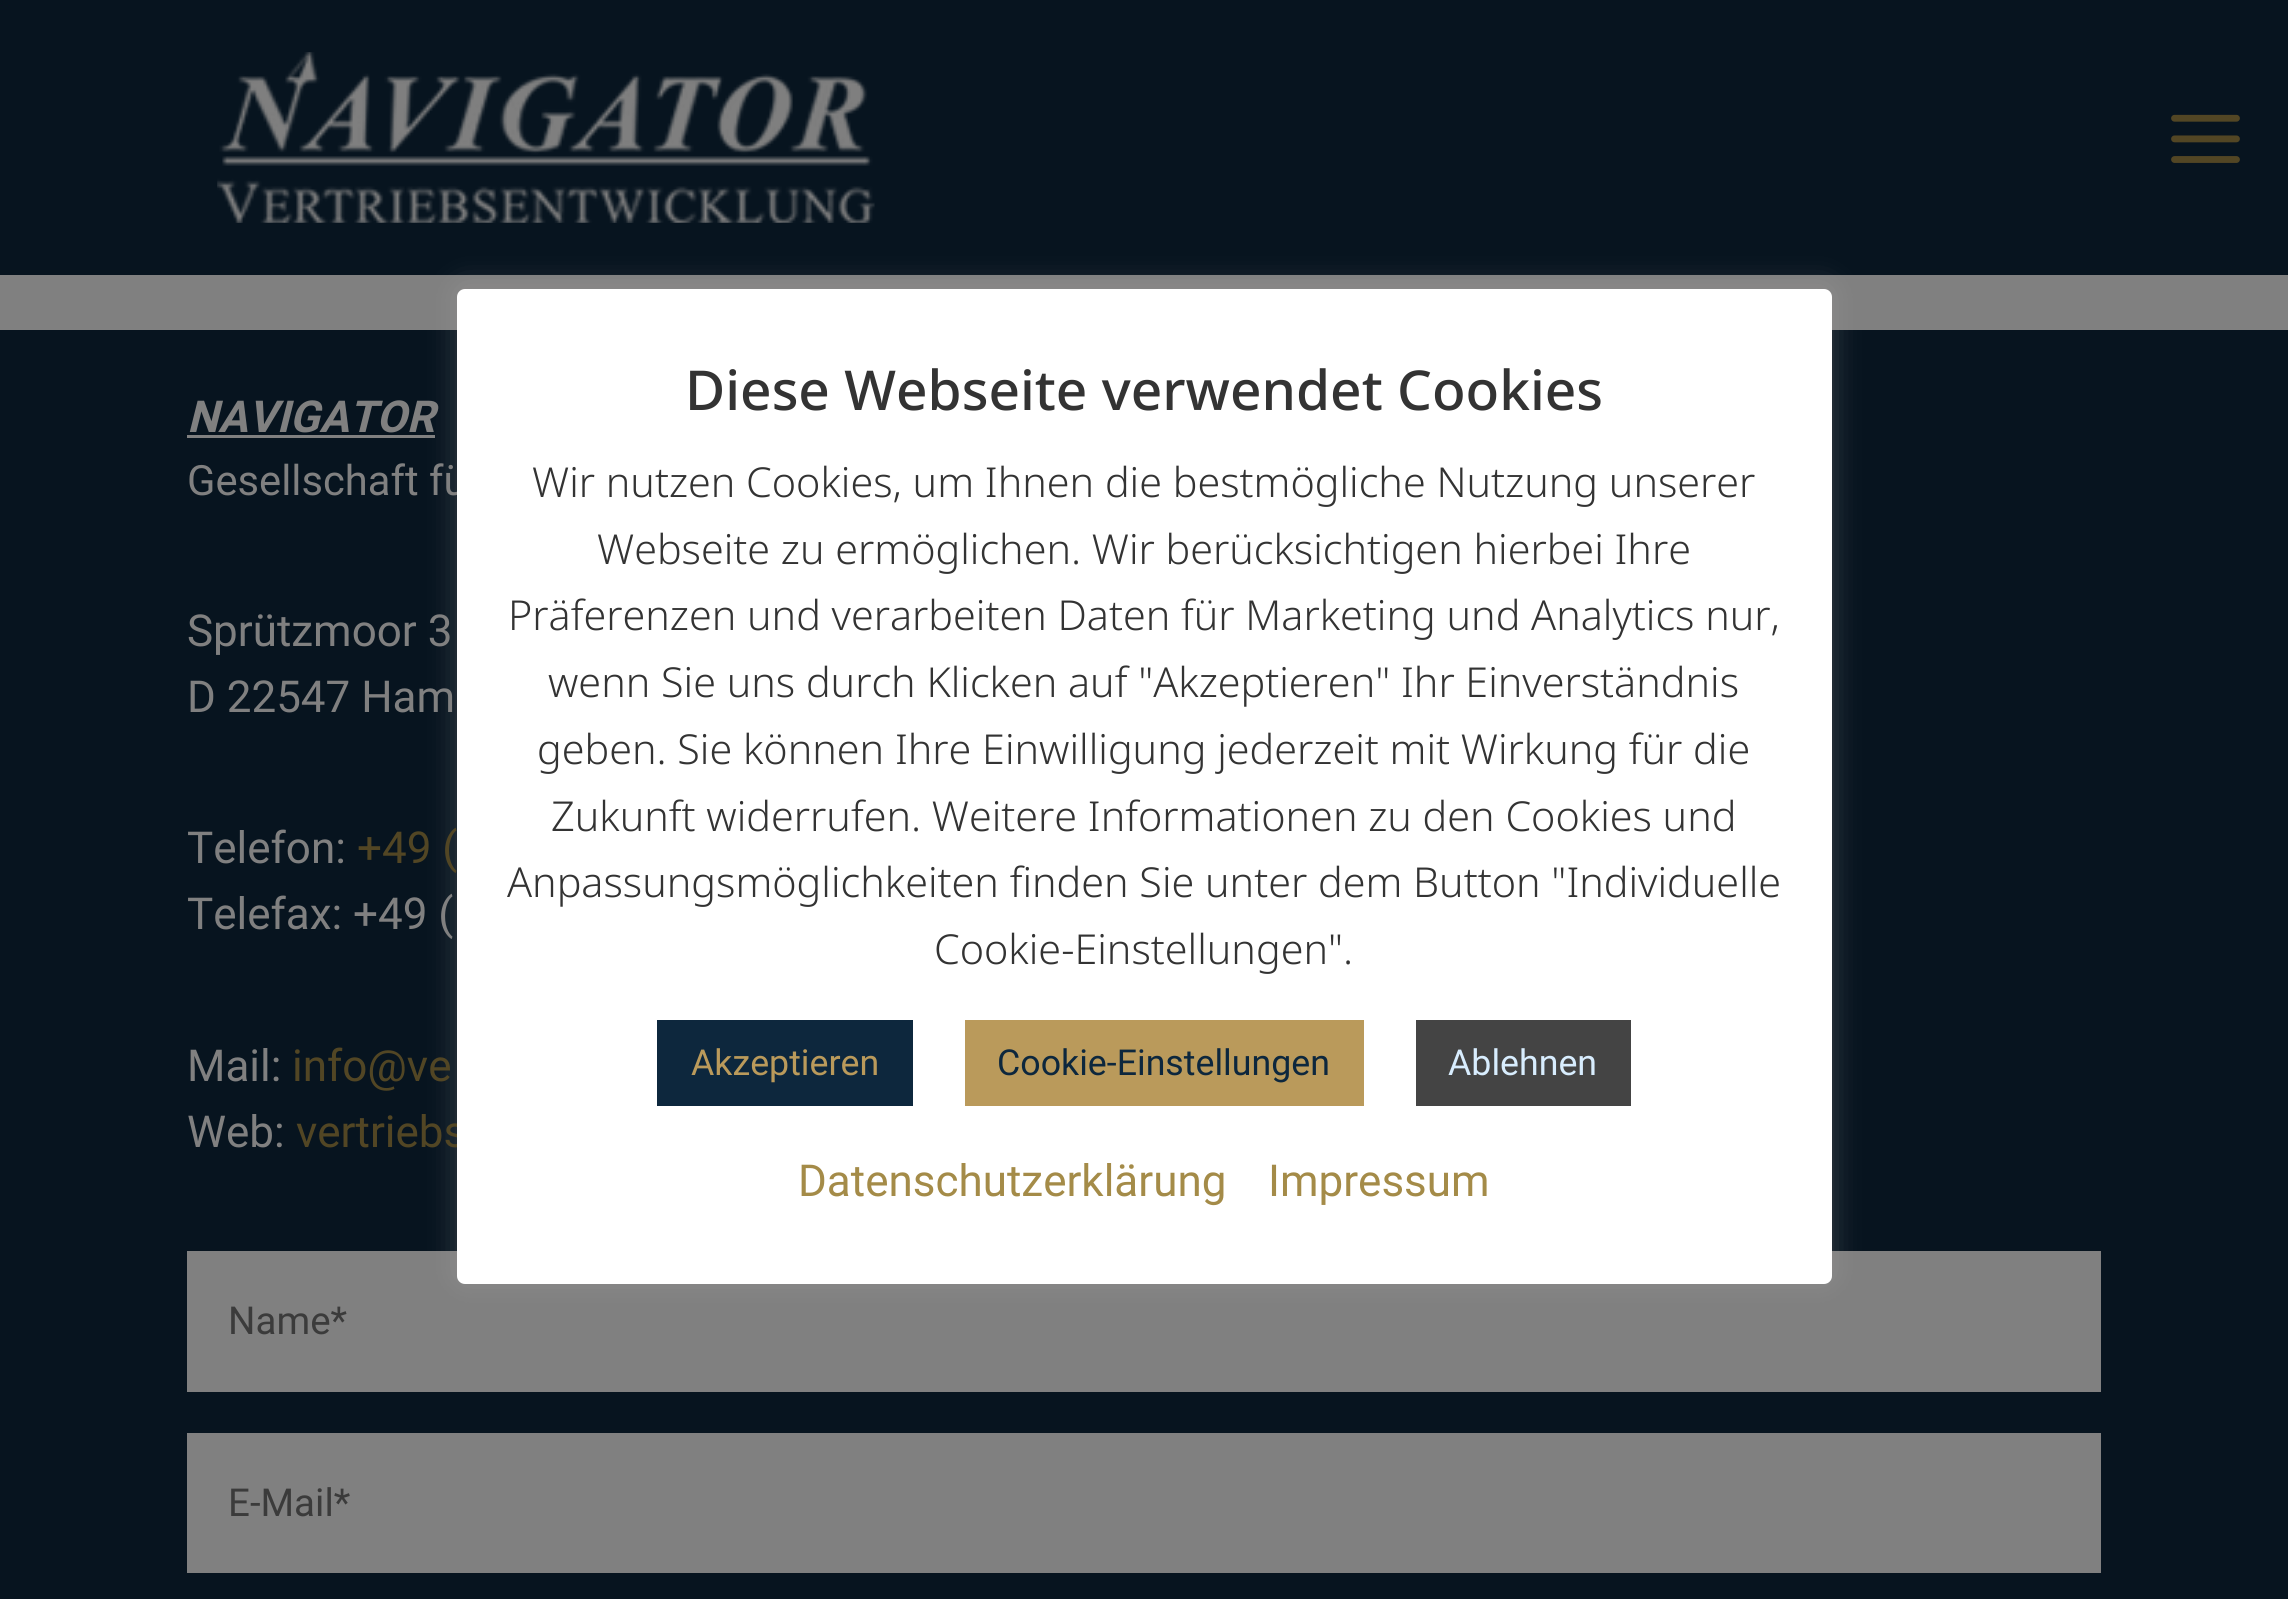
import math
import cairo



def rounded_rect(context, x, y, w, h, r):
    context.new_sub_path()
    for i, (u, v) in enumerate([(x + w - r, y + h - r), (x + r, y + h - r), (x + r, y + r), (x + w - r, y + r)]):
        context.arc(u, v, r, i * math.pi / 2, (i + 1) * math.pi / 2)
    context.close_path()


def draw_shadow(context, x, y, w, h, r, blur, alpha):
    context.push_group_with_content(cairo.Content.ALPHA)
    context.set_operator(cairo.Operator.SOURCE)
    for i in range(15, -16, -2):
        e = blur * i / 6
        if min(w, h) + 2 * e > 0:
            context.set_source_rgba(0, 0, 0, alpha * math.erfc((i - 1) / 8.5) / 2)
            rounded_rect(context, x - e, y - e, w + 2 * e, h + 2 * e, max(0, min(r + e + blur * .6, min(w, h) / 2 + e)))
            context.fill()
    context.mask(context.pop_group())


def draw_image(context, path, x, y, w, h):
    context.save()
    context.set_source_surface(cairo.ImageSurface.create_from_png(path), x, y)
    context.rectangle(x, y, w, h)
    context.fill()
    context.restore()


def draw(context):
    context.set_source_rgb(128 / 255, 128 / 255, 128 / 255)
    context.paint()
    context.set_source_rgb(7 / 255, 20 / 255, 31 / 255)
    context.rectangle(0, 0, 2288, 275)
    context.fill()
    draw_image(context, "images/1.png", 217, 52, 658, 171)
    draw_image(context, "images/2.png", 2171, 114, 69, 49)
    context.rectangle(0, 330, 2288, 1269)
    context.fill()
    context.set_source_rgb(128 / 255, 128 / 255, 128 / 255)
    context.rectangle(187, 435, 248, 3)
    context.fill()
    context.rectangle(187, 1251, 1914, 141)
    context.fill()
    context.rectangle(187, 1433, 1914, 140)
    context.fill()
    context.set_source_rgb(172 / 255, 171 / 255, 171 / 255)
    draw_shadow(context, 457, 286, 1375, 996, 8, 14, 0.3)
    context.select_font_face("Roboto", cairo.FontSlant.ITALIC, cairo.FontWeight.BOLD)
    context.set_font_size(44)
    context.set_source_rgb(128 / 255, 128 / 255, 128 / 255)
    context.move_to(187, 432)
    context.show_text("NAVIGATOR")
    context.select_font_face("Roboto")
    context.set_font_size(41.75)
    context.move_to(187, 495)
    context.show_text("Gesellschaft fü")
    context.set_font_size(44)
    context.move_to(187, 646)
    context.show_text("Sprützmoor 3")
    context.move_to(187, 712)
    context.show_text("D 22547 Ham")
    context.move_to(187, 863)
    context.show_text("Telefon:")
    context.set_source_rgb(82 / 255, 70 / 255, 36 / 255)
    context.move_to(357, 863)
    context.show_text("+49 (")
    context.set_source_rgb(128 / 255, 128 / 255, 128 / 255)
    context.move_to(187, 929)
    context.show_text("Telefax: +49 (")
    context.move_to(187, 1081)
    context.show_text("Mail:")
    context.set_source_rgb(82 / 255, 70 / 255, 36 / 255)
    context.move_to(292, 1081)
    context.show_text("info@ve")
    context.set_source_rgb(128 / 255, 128 / 255, 128 / 255)
    context.move_to(187, 1147)
    context.show_text("Web:")
    context.set_source_rgb(82 / 255, 70 / 255, 36 / 255)
    context.move_to(296, 1147)
    context.show_text("vertriebs")
    context.set_font_size(38.5)
    context.set_source_rgb(59 / 255, 59 / 255, 59 / 255)
    context.move_to(228, 1334)
    context.show_text("Name*")
    context.move_to(228, 1516)
    context.show_text("E-Mail*")
    context.set_source_rgb(1, 1, 1)
    rounded_rect(context, 457, 289, 1375, 995, 8)
    context.fill()
    context.select_font_face("Noto Sans Medium")
    context.set_font_size(55)
    context.set_source_rgb(51 / 255, 51 / 255, 51 / 255)
    context.move_to(685, 410)
    context.show_text("Diese Webseite verwendet Cookies")
    context.select_font_face("Noto Sans Light")
    context.set_font_size(41.25)
    context.move_to(532, 497)
    context.show_text("Wir nutzen Cookies, um Ihnen die bestmögliche Nutzung unserer")
    context.move_to(597, 564)
    context.show_text("Webseite zu ermöglichen. Wir berücksichtigen hierbei Ihre")
    context.move_to(508, 630)
    context.show_text("Präferenzen und verarbeiten Daten für Marketing und Analytics nur,")
    context.move_to(548, 697)
    context.show_text("wenn Sie uns durch Klicken auf \"Akzeptieren\" Ihr Einverständnis")
    context.move_to(537, 764)
    context.show_text("geben. Sie können Ihre Einwilligung jederzeit mit Wirkung für die")
    context.move_to(551, 831)
    context.show_text("Zukunft widerrufen. Weitere Informationen zu den Cookies und")
    context.move_to(507, 897)
    context.show_text("Anpassungsmöglichkeiten finden Sie unter dem Button \"Individuelle")
    context.move_to(934, 964)
    context.show_text("Cookie-Einstellungen\".")
    context.set_source_rgb(13 / 255, 39 / 255, 61 / 255)
    context.rectangle(657, 1020, 256, 86)
    context.fill()
    context.select_font_face("Roboto")
    context.set_font_size(35.75)
    context.set_source_rgb(186 / 255, 154 / 255, 91 / 255)
    context.move_to(691, 1075)
    context.show_text("Akzeptieren")
    context.rectangle(965, 1020, 399, 86)
    context.fill()
    context.set_source_rgb(13 / 255, 39 / 255, 61 / 255)
    context.move_to(997, 1075)
    context.show_text("Cookie-Einstellungen")
    context.set_source_rgb(68 / 255, 68 / 255, 68 / 255)
    context.rectangle(1416, 1020, 215, 86)
    context.fill()
    context.set_source_rgb(216 / 255, 237 / 255, 254 / 255)
    context.move_to(1448, 1075)
    context.show_text("Ablehnen")
    context.set_font_size(44)
    context.set_source_rgb(164 / 255, 139 / 255, 72 / 255)
    context.move_to(798, 1196)
    context.show_text("Datenschutzerklärung")
    context.move_to(1268, 1196)
    context.show_text("Impressum")


surface = cairo.ImageSurface(cairo.Format.RGB24, 2288, 1599)
context = cairo.Context(surface)
options = cairo.FontOptions()
options.set_hint_metrics(cairo.HintMetrics.OFF)
options.set_hint_style(cairo.HintStyle.NONE)
context.set_font_options(options)
context.set_miter_limit(4)
draw(context)
surface.write_to_png("out.png")
